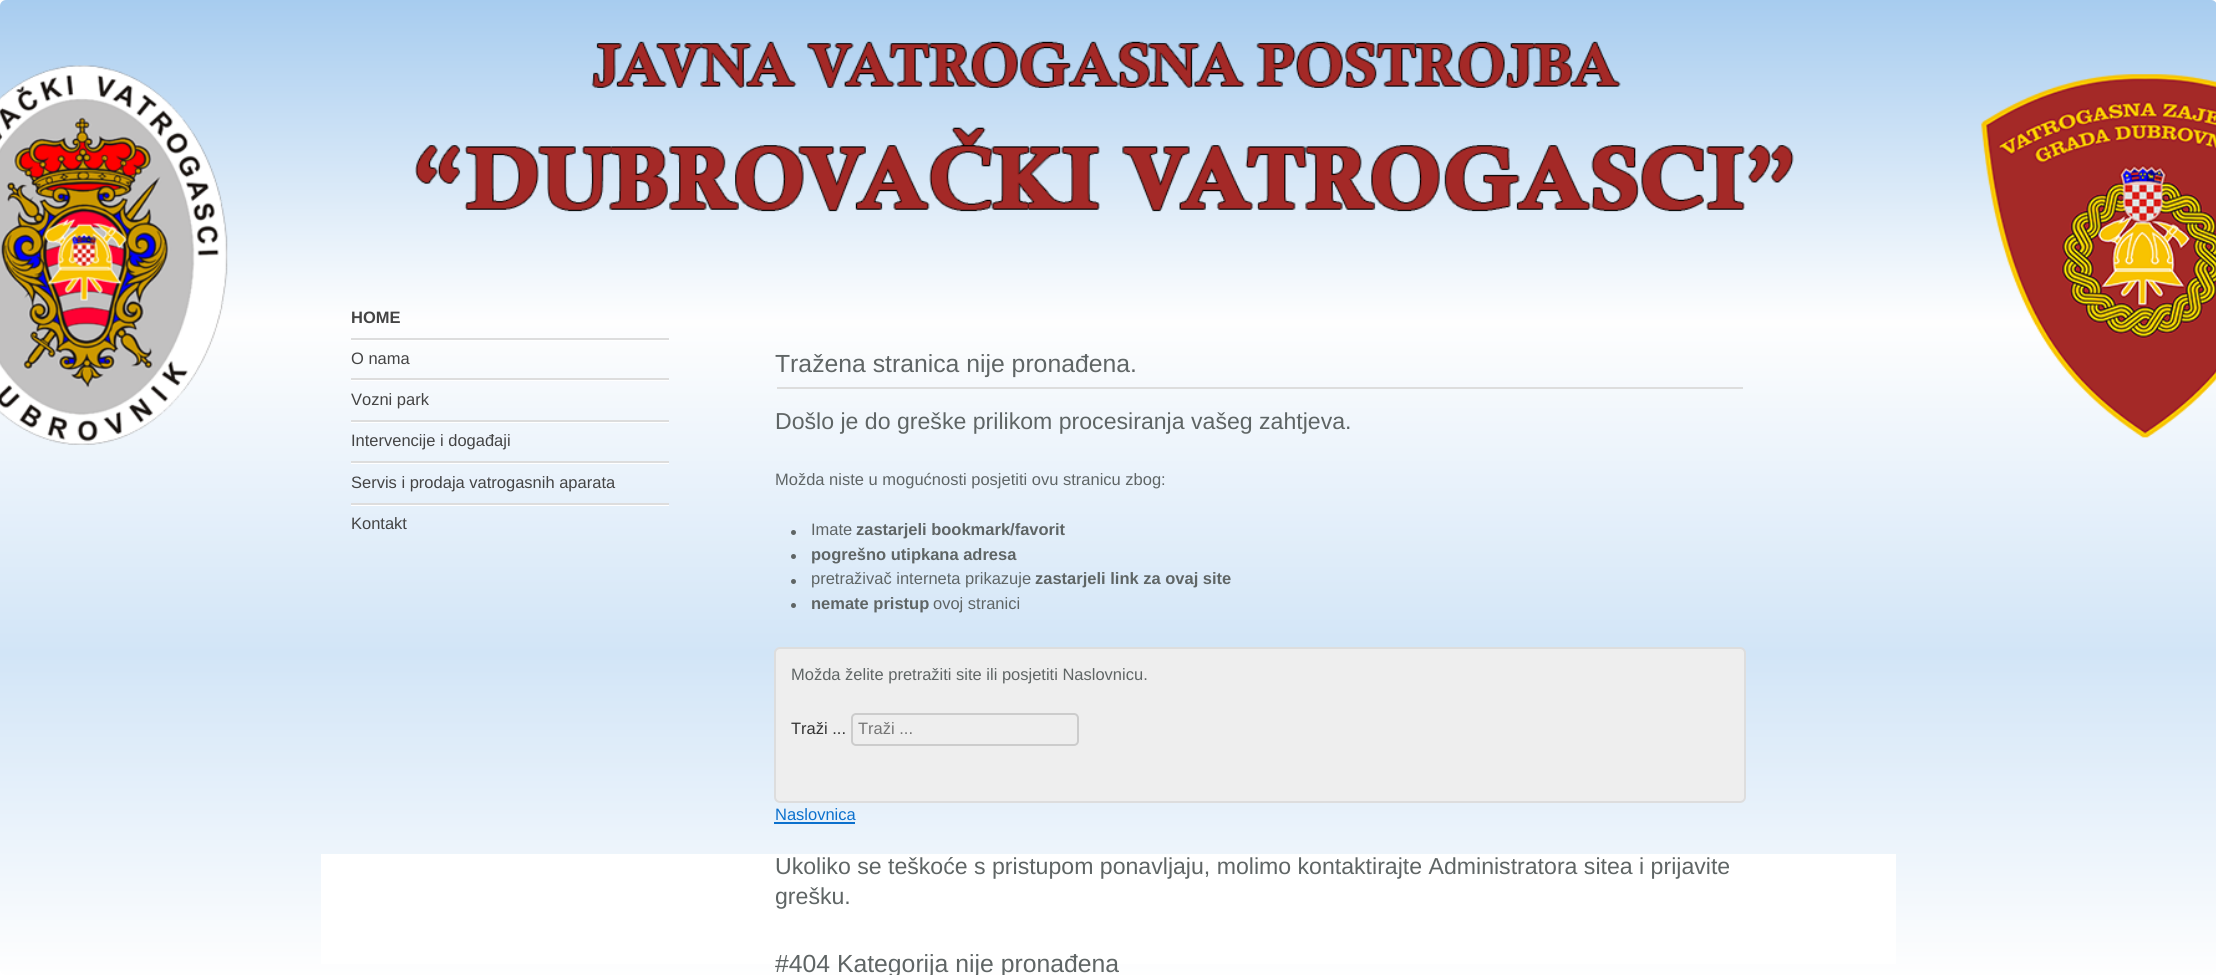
import math
import cairo



def rounded_rect(context, x, y, w, h, r):
    context.new_sub_path()
    for i, (u, v) in enumerate([(x + w - r, y + h - r), (x + r, y + h - r), (x + r, y + r), (x + w - r, y + r)]):
        context.arc(u, v, r, i * math.pi / 2, (i + 1) * math.pi / 2)
    context.close_path()


def draw_image(context, path, x, y, w, h):
    context.save()
    context.set_source_surface(cairo.ImageSurface.create_from_png(path), x, y)
    context.rectangle(x, y, w, h)
    context.fill()
    context.restore()


def draw(context):
    context.set_source_rgb(1, 1, 1)
    context.paint()
    gradient = cairo.LinearGradient(1109, 0, 1109, 975)
    gradient.add_color_stop_rgba(0, 167 / 255, 204 / 255, 239 / 255, 1)
    gradient.add_color_stop_rgba(0.33, 254 / 255, 254 / 255, 254 / 255, 1)
    gradient.add_color_stop_rgba(0.67, 210 / 255, 229 / 255, 247 / 255, 1)
    gradient.add_color_stop_rgba(1, 254 / 255, 254 / 255, 254 / 255, 1)
    context.set_source(gradient)
    rounded_rect(context, 0, 0, 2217, 975, 6)
    context.fill()
    gradient = cairo.LinearGradient(1109, -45, 1109, 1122)
    gradient.add_color_stop_rgba(0, 0, 0, 0, 0)
    gradient.add_color_stop_rgba(0.77, 1, 1, 1, 0)
    gradient.add_color_stop_rgba(0.77, 1, 1, 1, 1)
    gradient.add_color_stop_rgba(1, 1, 1, 1, 1)
    context.set_source(gradient)
    context.rectangle(321, 854, 1575, 110)
    context.fill()
    draw_image(context, "images/1.png", 0, 41, 2216, 404)
    context.set_source_rgb(1, 1, 1)
    context.rectangle(351, 340, 318, 1)
    context.fill()
    context.set_source_rgb(221 / 255, 221 / 255, 221 / 255)
    context.rectangle(351, 338, 318, 2)
    context.fill()
    context.set_source_rgb(1, 1, 1)
    context.rectangle(351, 380, 318, 1)
    context.fill()
    context.set_source_rgb(221 / 255, 221 / 255, 221 / 255)
    context.rectangle(351, 378, 318, 2)
    context.fill()
    context.set_source_rgb(1, 1, 1)
    context.rectangle(351, 422, 318, 1)
    context.fill()
    context.set_source_rgb(221 / 255, 221 / 255, 221 / 255)
    context.rectangle(351, 420, 318, 2)
    context.fill()
    context.set_source_rgb(1, 1, 1)
    context.rectangle(351, 463, 318, 1)
    context.fill()
    context.set_source_rgb(221 / 255, 221 / 255, 221 / 255)
    context.rectangle(351, 461, 318, 2)
    context.fill()
    context.set_source_rgb(1, 1, 1)
    context.rectangle(351, 505, 318, 1)
    context.fill()
    context.set_source_rgb(221 / 255, 221 / 255, 221 / 255)
    context.rectangle(351, 503, 318, 2)
    context.fill()
    context.rectangle(777, 387, 966, 2)
    context.fill()
    context.set_source_rgb(95 / 255, 101 / 255, 101 / 255)
    context.arc(793.5, 532.5, 2.5, 0, 2 * math.pi)
    context.fill()
    context.arc(793.5, 556.5, 2.5, 0, 2 * math.pi)
    context.fill()
    context.arc(793.5, 581.5, 2.5, 0, 2 * math.pi)
    context.fill()
    context.arc(793.5, 605.5, 2.5, 0, 2 * math.pi)
    context.fill()
    context.set_source_rgb(238 / 255, 238 / 255, 238 / 255)
    rounded_rect(context, 775, 648, 970, 154, 5)
    context.fill_preserve()
    context.set_source_rgb(221 / 255, 221 / 255, 221 / 255)
    context.stroke()
    rounded_rect(context, 852, 714, 226, 31, 4)
    context.set_source_rgb(204 / 255, 204 / 255, 204 / 255)
    context.stroke()
    context.set_source_rgb(11 / 255, 112 / 255, 205 / 255)
    context.rectangle(774, 822, 81, 2)
    context.fill()
    context.select_font_face("Liberation Sans", cairo.FontSlant.NORMAL, cairo.FontWeight.BOLD)
    context.set_font_size(16.5)
    context.set_source_rgb(68 / 255, 68 / 255, 68 / 255)
    context.move_to(351, 323)
    context.show_text("HOME")
    context.select_font_face("Liberation Sans")
    context.move_to(351, 364)
    context.show_text("O nama")
    context.move_to(351, 405)
    context.show_text("Vozni park")
    context.move_to(351, 446)
    context.show_text("Intervencije i događaji")
    context.move_to(351, 488)
    context.show_text("Servis i prodaja vatrogasnih aparata")
    context.move_to(351, 529)
    context.show_text("Kontakt")
    context.set_font_size(24.75)
    context.set_source_rgb(95 / 255, 101 / 255, 101 / 255)
    context.move_to(775, 372)
    context.show_text("Tražena stranica nije pronađena.")
    context.set_font_size(23.1)
    context.move_to(775, 429)
    context.show_text("Došlo je do greške prilikom procesiranja vašeg zahtjeva.")
    context.set_font_size(16.5)
    context.move_to(775, 485)
    context.show_text("Možda niste u mogućnosti posjetiti ovu stranicu zbog:")
    context.move_to(811, 535)
    context.show_text("Imate")
    context.select_font_face("Liberation Sans", cairo.FontSlant.NORMAL, cairo.FontWeight.BOLD)
    context.move_to(856, 535)
    context.show_text("zastarjeli bookmark/favorit")
    context.move_to(811, 560)
    context.show_text("pogrešno utipkana adresa")
    context.select_font_face("Liberation Sans")
    context.move_to(811, 584)
    context.show_text("pretraživač interneta prikazuje")
    context.select_font_face("Liberation Sans", cairo.FontSlant.NORMAL, cairo.FontWeight.BOLD)
    context.move_to(1035, 584)
    context.show_text("zastarjeli link za ovaj site")
    context.move_to(811, 609)
    context.show_text("nemate pristup")
    context.select_font_face("Liberation Sans")
    context.move_to(933, 609)
    context.show_text("ovoj stranici")
    context.move_to(791, 680)
    context.show_text("Možda želite pretražiti site ili posjetiti Naslovnicu.")
    context.set_source_rgb(51 / 255, 51 / 255, 51 / 255)
    context.move_to(791, 734)
    context.show_text("Traži ...")
    context.set_source_rgb(117 / 255, 117 / 255, 117 / 255)
    context.move_to(858, 734)
    context.show_text("Traži ...")
    context.set_source_rgb(11 / 255, 112 / 255, 205 / 255)
    context.move_to(775, 820)
    context.show_text("Naslovnica")
    context.set_font_size(23.1)
    context.set_source_rgb(95 / 255, 101 / 255, 101 / 255)
    context.move_to(775, 874)
    context.show_text("Ukoliko se teškoće s pristupom ponavljaju, molimo kontaktirajte Administratora sitea i prijavite")
    context.move_to(775, 904)
    context.show_text("grešku.")
    context.set_font_size(24.75)
    context.move_to(775, 972)
    context.show_text("#404 Kategorija nije pronađena")


surface = cairo.ImageSurface(cairo.Format.RGB24, 2216, 975)
context = cairo.Context(surface)
options = cairo.FontOptions()
options.set_hint_metrics(cairo.HintMetrics.OFF)
options.set_hint_style(cairo.HintStyle.NONE)
context.set_font_options(options)
context.set_miter_limit(4)
draw(context)
surface.write_to_png("out.png")
